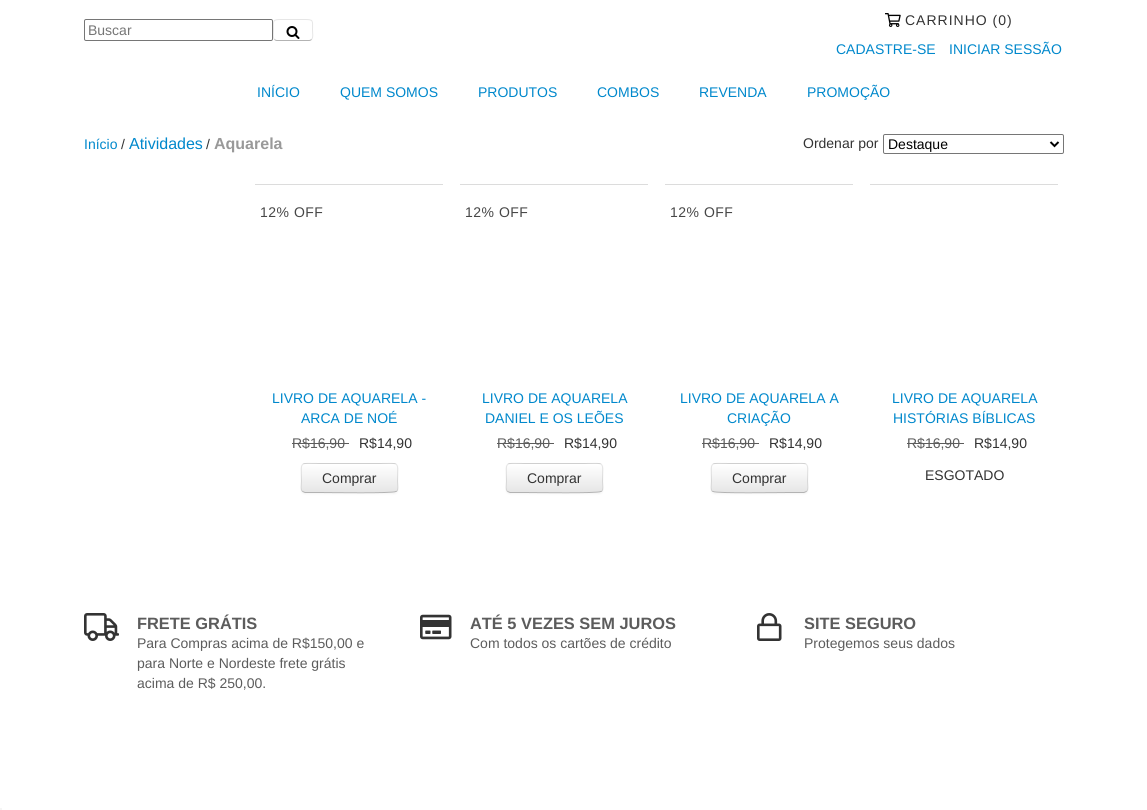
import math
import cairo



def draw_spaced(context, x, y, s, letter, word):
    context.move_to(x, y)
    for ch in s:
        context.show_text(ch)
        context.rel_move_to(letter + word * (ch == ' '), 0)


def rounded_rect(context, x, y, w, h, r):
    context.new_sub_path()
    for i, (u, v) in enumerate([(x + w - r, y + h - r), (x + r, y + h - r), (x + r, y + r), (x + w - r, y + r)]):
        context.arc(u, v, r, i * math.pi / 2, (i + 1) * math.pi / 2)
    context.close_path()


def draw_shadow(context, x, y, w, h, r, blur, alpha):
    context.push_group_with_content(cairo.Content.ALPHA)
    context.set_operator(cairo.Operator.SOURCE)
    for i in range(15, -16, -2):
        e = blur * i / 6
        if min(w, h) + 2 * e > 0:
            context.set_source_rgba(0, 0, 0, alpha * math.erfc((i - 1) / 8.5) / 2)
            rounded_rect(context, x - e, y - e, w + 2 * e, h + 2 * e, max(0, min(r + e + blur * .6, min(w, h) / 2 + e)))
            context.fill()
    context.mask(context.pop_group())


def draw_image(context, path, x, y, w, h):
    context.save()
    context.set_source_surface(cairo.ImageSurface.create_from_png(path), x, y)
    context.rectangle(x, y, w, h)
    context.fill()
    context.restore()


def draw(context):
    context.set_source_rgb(1, 1, 1)
    context.paint()
    rounded_rect(context, 84.5, 19.5, 188, 21, 1.5)
    context.set_source_rgb(118 / 255, 118 / 255, 118 / 255)
    context.set_line_width(1)
    context.stroke()
    context.new_path()
    context.move_to(311.5, 39.5)
    context.curve_to(311, 40, 310, 40.5, 309, 40.5)
    context.line_to(277, 40.5)
    context.curve_to(276, 40.5, 275, 40, 274.5, 39.5)
    context.set_source_rgb(179 / 255, 179 / 255, 179 / 255)
    context.stroke()
    context.new_path()
    context.move_to(274.5, 39.5)
    context.curve_to(272.5, 37.5, 273.5, 32.5, 273.5, 30)
    context.curve_to(273.5, 20, 272, 19.5, 282.5, 19.5)
    context.line_to(303.5, 19.5)
    context.curve_to(314, 19.5, 312.5, 20, 312.5, 30)
    context.curve_to(312.5, 32.5, 313.5, 37.5, 311.5, 39.5)
    context.set_source_rgba(0, 0, 0, 0.1)
    context.stroke()
    draw_image(context, "images/1.png", 286, 26, 14, 13)
    draw_image(context, "images/2.png", 885, 13, 16, 14)
    rounded_rect(context, 883.5, 134.5, 180, 19, 1.5)
    context.set_source_rgb(118 / 255, 118 / 255, 118 / 255)
    context.stroke()
    context.new_path()
    context.move_to(1050.5, 142)
    context.line_to(1054.5, 146)
    context.line_to(1058.5, 142)
    context.set_source_rgb(0, 0, 0)
    context.set_line_width(2)
    context.stroke()
    context.set_source_rgb(220 / 255, 220 / 255, 220 / 255)
    context.rectangle(255, 184, 188, 1)
    context.fill()
    context.set_source_rgb(92 / 255, 92 / 255, 92 / 255)
    context.rectangle(292, 443, 57, 1)
    context.fill()
    context.set_source_rgb(0, 0, 0)
    draw_shadow(context, 301, 464, 97, 30, 4, 1, 0.05)
    context.save()
    rounded_rect(context, 301, 463, 97, 30, 4)
    context.clip()
    gradient = cairo.LinearGradient(350, 436, 350, 464)
    gradient.add_color_stop_rgba(0, 1, 1, 1, 1)
    gradient.add_color_stop_rgba(1, 230 / 255, 230 / 255, 230 / 255, 1)
    context.set_source(gradient)
    context.rectangle(301, 463, 97, 1)
    context.fill()
    gradient = cairo.LinearGradient(350, 464, 350, 492)
    gradient.add_color_stop_rgba(0, 1, 1, 1, 1)
    gradient.add_color_stop_rgba(1, 230 / 255, 230 / 255, 230 / 255, 1)
    context.set_source(gradient)
    context.rectangle(301, 464, 97, 28)
    context.fill()
    gradient = cairo.LinearGradient(350, 492, 350, 520)
    gradient.add_color_stop_rgba(0, 1, 1, 1, 1)
    gradient.add_color_stop_rgba(1, 230 / 255, 230 / 255, 230 / 255, 1)
    context.set_source(gradient)
    context.rectangle(301, 492, 97, 1)
    context.fill()
    context.restore()
    context.set_source_rgba(1, 1, 1, 0.2)
    context.new_path()
    context.move_to(305, 465)
    context.line_to(394, 465)
    context.curve_to(396, 465, 397, 466, 397, 468)
    context.curve_to(397, 460, 382, 464, 379, 464)
    context.line_to(320, 464)
    context.curve_to(317, 464, 302, 460, 302, 468)
    context.curve_to(302, 466, 303, 465, 305, 465)
    context.close_path()
    context.fill()
    context.new_path()
    context.move_to(396.5, 491.5)
    context.line_to(396, 491.5)
    context.curve_to(394, 493.5, 328.5, 492.5, 320, 492.5)
    context.line_to(305, 492.5)
    context.line_to(302.5, 491.5)
    context.set_source_rgb(179 / 255, 179 / 255, 179 / 255)
    context.set_line_width(1)
    context.stroke()
    context.new_path()
    context.move_to(302.5, 491.5)
    context.curve_to(300, 489, 301.5, 484.5, 301.5, 481.5)
    context.curve_to(301.5, 460.5, 298, 463.5, 320, 463.5)
    context.line_to(379, 463.5)
    context.curve_to(401, 463.5, 397.5, 460.5, 397.5, 481.5)
    context.curve_to(397.5, 484.5, 399, 489, 396.5, 491.5)
    context.set_source_rgba(0, 0, 0, 0.1)
    context.stroke()
    context.set_source_rgb(220 / 255, 220 / 255, 220 / 255)
    context.rectangle(460, 184, 188, 1)
    context.fill()
    context.set_source_rgb(92 / 255, 92 / 255, 92 / 255)
    context.rectangle(497, 443, 57, 1)
    context.fill()
    context.set_source_rgb(0, 0, 0)
    draw_shadow(context, 506, 464, 97, 30, 4, 1, 0.05)
    context.save()
    rounded_rect(context, 506, 463, 97, 30, 4)
    context.clip()
    gradient = cairo.LinearGradient(555, 436, 555, 464)
    gradient.add_color_stop_rgba(0, 1, 1, 1, 1)
    gradient.add_color_stop_rgba(1, 230 / 255, 230 / 255, 230 / 255, 1)
    context.set_source(gradient)
    context.rectangle(506, 463, 97, 1)
    context.fill()
    gradient = cairo.LinearGradient(555, 464, 555, 492)
    gradient.add_color_stop_rgba(0, 1, 1, 1, 1)
    gradient.add_color_stop_rgba(1, 230 / 255, 230 / 255, 230 / 255, 1)
    context.set_source(gradient)
    context.rectangle(506, 464, 97, 28)
    context.fill()
    gradient = cairo.LinearGradient(555, 492, 555, 520)
    gradient.add_color_stop_rgba(0, 1, 1, 1, 1)
    gradient.add_color_stop_rgba(1, 230 / 255, 230 / 255, 230 / 255, 1)
    context.set_source(gradient)
    context.rectangle(506, 492, 97, 1)
    context.fill()
    context.restore()
    context.set_source_rgba(1, 1, 1, 0.2)
    context.new_path()
    context.move_to(510, 465)
    context.line_to(599, 465)
    context.curve_to(601, 465, 602, 466, 602, 468)
    context.curve_to(602, 460, 587, 464, 584, 464)
    context.line_to(525, 464)
    context.curve_to(522, 464, 507, 460, 507, 468)
    context.curve_to(507, 466, 508, 465, 510, 465)
    context.close_path()
    context.fill()
    context.new_path()
    context.move_to(601.5, 491.5)
    context.line_to(601, 491.5)
    context.curve_to(599, 493.5, 533.5, 492.5, 525, 492.5)
    context.line_to(510, 492.5)
    context.line_to(507.5, 491.5)
    context.set_source_rgb(179 / 255, 179 / 255, 179 / 255)
    context.stroke()
    context.new_path()
    context.move_to(507.5, 491.5)
    context.curve_to(505, 489, 506.5, 484.5, 506.5, 481.5)
    context.curve_to(506.5, 460.5, 503, 463.5, 525, 463.5)
    context.line_to(584, 463.5)
    context.curve_to(606, 463.5, 602.5, 460.5, 602.5, 481.5)
    context.curve_to(602.5, 484.5, 604, 489, 601.5, 491.5)
    context.set_source_rgba(0, 0, 0, 0.1)
    context.stroke()
    context.set_source_rgb(220 / 255, 220 / 255, 220 / 255)
    context.rectangle(665, 184, 188, 1)
    context.fill()
    context.set_source_rgb(92 / 255, 92 / 255, 92 / 255)
    context.rectangle(702, 443, 57, 1)
    context.fill()
    context.set_source_rgb(0, 0, 0)
    draw_shadow(context, 711, 464, 97, 30, 4, 1, 0.05)
    context.save()
    rounded_rect(context, 711, 463, 97, 30, 4)
    context.clip()
    gradient = cairo.LinearGradient(760, 436, 760, 464)
    gradient.add_color_stop_rgba(0, 1, 1, 1, 1)
    gradient.add_color_stop_rgba(1, 230 / 255, 230 / 255, 230 / 255, 1)
    context.set_source(gradient)
    context.rectangle(711, 463, 97, 1)
    context.fill()
    gradient = cairo.LinearGradient(760, 464, 760, 492)
    gradient.add_color_stop_rgba(0, 1, 1, 1, 1)
    gradient.add_color_stop_rgba(1, 230 / 255, 230 / 255, 230 / 255, 1)
    context.set_source(gradient)
    context.rectangle(711, 464, 97, 28)
    context.fill()
    gradient = cairo.LinearGradient(760, 492, 760, 520)
    gradient.add_color_stop_rgba(0, 1, 1, 1, 1)
    gradient.add_color_stop_rgba(1, 230 / 255, 230 / 255, 230 / 255, 1)
    context.set_source(gradient)
    context.rectangle(711, 492, 97, 1)
    context.fill()
    context.restore()
    context.set_source_rgba(1, 1, 1, 0.2)
    context.new_path()
    context.move_to(715, 465)
    context.line_to(804, 465)
    context.curve_to(806, 465, 807, 466, 807, 468)
    context.curve_to(807, 460, 792, 464, 789, 464)
    context.line_to(730, 464)
    context.curve_to(727, 464, 712, 460, 712, 468)
    context.curve_to(712, 466, 713, 465, 715, 465)
    context.close_path()
    context.fill()
    context.new_path()
    context.move_to(806.5, 491.5)
    context.line_to(804, 492.5)
    context.line_to(789, 492.5)
    context.curve_to(780.5, 492.5, 715, 493.5, 713, 491.5)
    context.line_to(712.5, 491.5)
    context.set_source_rgb(179 / 255, 179 / 255, 179 / 255)
    context.stroke()
    context.new_path()
    context.move_to(712.5, 491.5)
    context.curve_to(710, 489, 711.5, 484.5, 711.5, 481.5)
    context.curve_to(711.5, 460.5, 708, 463.5, 730, 463.5)
    context.line_to(789, 463.5)
    context.curve_to(811, 463.5, 807.5, 460.5, 807.5, 481.5)
    context.curve_to(807.5, 484.5, 809, 489, 806.5, 491.5)
    context.set_source_rgba(0, 0, 0, 0.1)
    context.stroke()
    context.set_source_rgb(220 / 255, 220 / 255, 220 / 255)
    context.rectangle(870, 184, 188, 1)
    context.fill()
    context.set_source_rgb(92 / 255, 92 / 255, 92 / 255)
    context.rectangle(907, 443, 57, 1)
    context.fill()
    draw_image(context, "images/3.png", 84, 613, 35, 28)
    draw_image(context, "images/4.png", 420, 614, 32, 26)
    draw_image(context, "images/5.png", 757, 613, 25, 28)
    context.set_source_rgb(245 / 255, 245 / 255, 245 / 255)
    context.rectangle(0, 808, 2, 2)
    context.fill()
    context.select_font_face("Liberation Sans")
    context.set_font_size(14)
    context.set_source_rgb(117 / 255, 117 / 255, 117 / 255)
    context.move_to(88, 35)
    context.show_text("Buscar")
    context.set_source_rgb(51 / 255, 51 / 255, 51 / 255)
    draw_spaced(context, 905, 25, "CARRINHO (0)", 1, 0)
    context.set_source_rgb(0, 136 / 255, 204 / 255)
    context.move_to(836, 54)
    context.show_text("CADASTRE-SE")
    context.move_to(949, 54)
    context.show_text("INICIAR SESSÃO")
    context.move_to(257, 97)
    context.show_text("INÍCIO")
    context.move_to(340, 97)
    context.show_text("QUEM SOMOS")
    context.move_to(478, 97)
    context.show_text("PRODUTOS")
    context.move_to(597, 97)
    context.show_text("COMBOS")
    context.move_to(699, 97)
    context.show_text("REVENDA")
    context.move_to(807, 97)
    context.show_text("PROMOÇÃO")
    context.move_to(84, 149)
    context.show_text("Início")
    context.set_source_rgb(51 / 255, 51 / 255, 51 / 255)
    context.move_to(121, 149)
    context.show_text("/")
    context.set_font_size(16)
    context.set_source_rgb(0, 136 / 255, 204 / 255)
    context.move_to(129, 149)
    context.show_text("Atividades")
    context.set_font_size(14)
    context.set_source_rgb(51 / 255, 51 / 255, 51 / 255)
    context.move_to(206, 149)
    context.show_text("/")
    context.select_font_face("Liberation Sans", cairo.FontSlant.NORMAL, cairo.FontWeight.BOLD)
    context.set_font_size(16)
    context.set_source_rgb(153 / 255, 153 / 255, 153 / 255)
    context.move_to(214, 149)
    context.show_text("Aquarela")
    context.select_font_face("Liberation Sans")
    context.set_font_size(14)
    context.set_source_rgb(51 / 255, 51 / 255, 51 / 255)
    context.move_to(803, 148)
    context.show_text("Ordenar por")
    context.set_source_rgb(0, 0, 0)
    context.move_to(888, 149)
    context.show_text("Destaque")
    context.set_source_rgb(71 / 255, 71 / 255, 71 / 255)
    draw_spaced(context, 260, 217, "12% OFF", 0.5, 0)
    context.set_source_rgb(0, 136 / 255, 204 / 255)
    context.move_to(272, 403)
    context.show_text("LIVRO DE AQUARELA -")
    context.move_to(301, 423)
    context.show_text("ARCA DE NOÉ")
    context.set_source_rgb(92 / 255, 92 / 255, 92 / 255)
    context.move_to(292, 448)
    context.show_text("R$16,90")
    context.set_source_rgb(51 / 255, 51 / 255, 51 / 255)
    context.move_to(359, 448)
    context.show_text("R$14,90")
    context.move_to(322, 483)
    context.show_text("Comprar")
    context.set_source_rgb(71 / 255, 71 / 255, 71 / 255)
    draw_spaced(context, 465, 217, "12% OFF", 0.5, 0)
    context.set_source_rgb(0, 136 / 255, 204 / 255)
    context.move_to(482, 403)
    context.show_text("LIVRO DE AQUARELA")
    context.move_to(485, 423)
    context.show_text("DANIEL E OS LEÕES")
    context.set_source_rgb(92 / 255, 92 / 255, 92 / 255)
    context.move_to(497, 448)
    context.show_text("R$16,90")
    context.set_source_rgb(51 / 255, 51 / 255, 51 / 255)
    context.move_to(564, 448)
    context.show_text("R$14,90")
    context.move_to(527, 483)
    context.show_text("Comprar")
    context.set_source_rgb(71 / 255, 71 / 255, 71 / 255)
    draw_spaced(context, 670, 217, "12% OFF", 0.5, 0)
    context.set_source_rgb(0, 136 / 255, 204 / 255)
    context.move_to(680, 403)
    context.show_text("LIVRO DE AQUARELA A")
    context.move_to(727, 423)
    context.show_text("CRIAÇÃO")
    context.set_source_rgb(92 / 255, 92 / 255, 92 / 255)
    context.move_to(702, 448)
    context.show_text("R$16,90")
    context.set_source_rgb(51 / 255, 51 / 255, 51 / 255)
    context.move_to(769, 448)
    context.show_text("R$14,90")
    context.move_to(732, 483)
    context.show_text("Comprar")
    context.set_source_rgb(0, 136 / 255, 204 / 255)
    context.move_to(892, 403)
    context.show_text("LIVRO DE AQUARELA")
    context.move_to(893, 423)
    context.show_text("HISTÓRIAS BÍBLICAS")
    context.set_source_rgb(92 / 255, 92 / 255, 92 / 255)
    context.move_to(907, 448)
    context.show_text("R$16,90")
    context.set_source_rgb(51 / 255, 51 / 255, 51 / 255)
    context.move_to(974, 448)
    context.show_text("R$14,90")
    context.move_to(925, 480)
    context.show_text("ESGOTADO")
    context.select_font_face("Liberation Sans", cairo.FontSlant.NORMAL, cairo.FontWeight.BOLD)
    context.set_font_size(16.4)
    context.set_source_rgb(92 / 255, 92 / 255, 92 / 255)
    context.move_to(137, 629)
    context.show_text("FRETE GRÁTIS")
    context.select_font_face("Liberation Sans")
    context.set_font_size(14)
    context.move_to(137, 648)
    context.show_text("Para Compras acima de R$150,00 e")
    context.move_to(137, 668)
    context.show_text("para Norte e Nordeste frete grátis")
    context.move_to(137, 688)
    context.show_text("acima de R$ 250,00.")
    context.select_font_face("Liberation Sans", cairo.FontSlant.NORMAL, cairo.FontWeight.BOLD)
    context.set_font_size(16.4)
    context.move_to(470, 629)
    context.show_text("ATÉ 5 VEZES SEM JUROS")
    context.select_font_face("Liberation Sans")
    context.set_font_size(14)
    context.move_to(470, 648)
    context.show_text("Com todos os cartões de crédito")
    context.select_font_face("Liberation Sans", cairo.FontSlant.NORMAL, cairo.FontWeight.BOLD)
    context.set_font_size(16.4)
    context.move_to(804, 629)
    context.show_text("SITE SEGURO")
    context.select_font_face("Liberation Sans")
    context.set_font_size(14)
    context.move_to(804, 648)
    context.show_text("Protegemos seus dados")


surface = cairo.ImageSurface(cairo.Format.RGB24, 1147, 810)
context = cairo.Context(surface)
options = cairo.FontOptions()
options.set_hint_metrics(cairo.HintMetrics.OFF)
options.set_hint_style(cairo.HintStyle.NONE)
context.set_font_options(options)
context.set_miter_limit(4)
draw(context)
surface.write_to_png("out.png")
